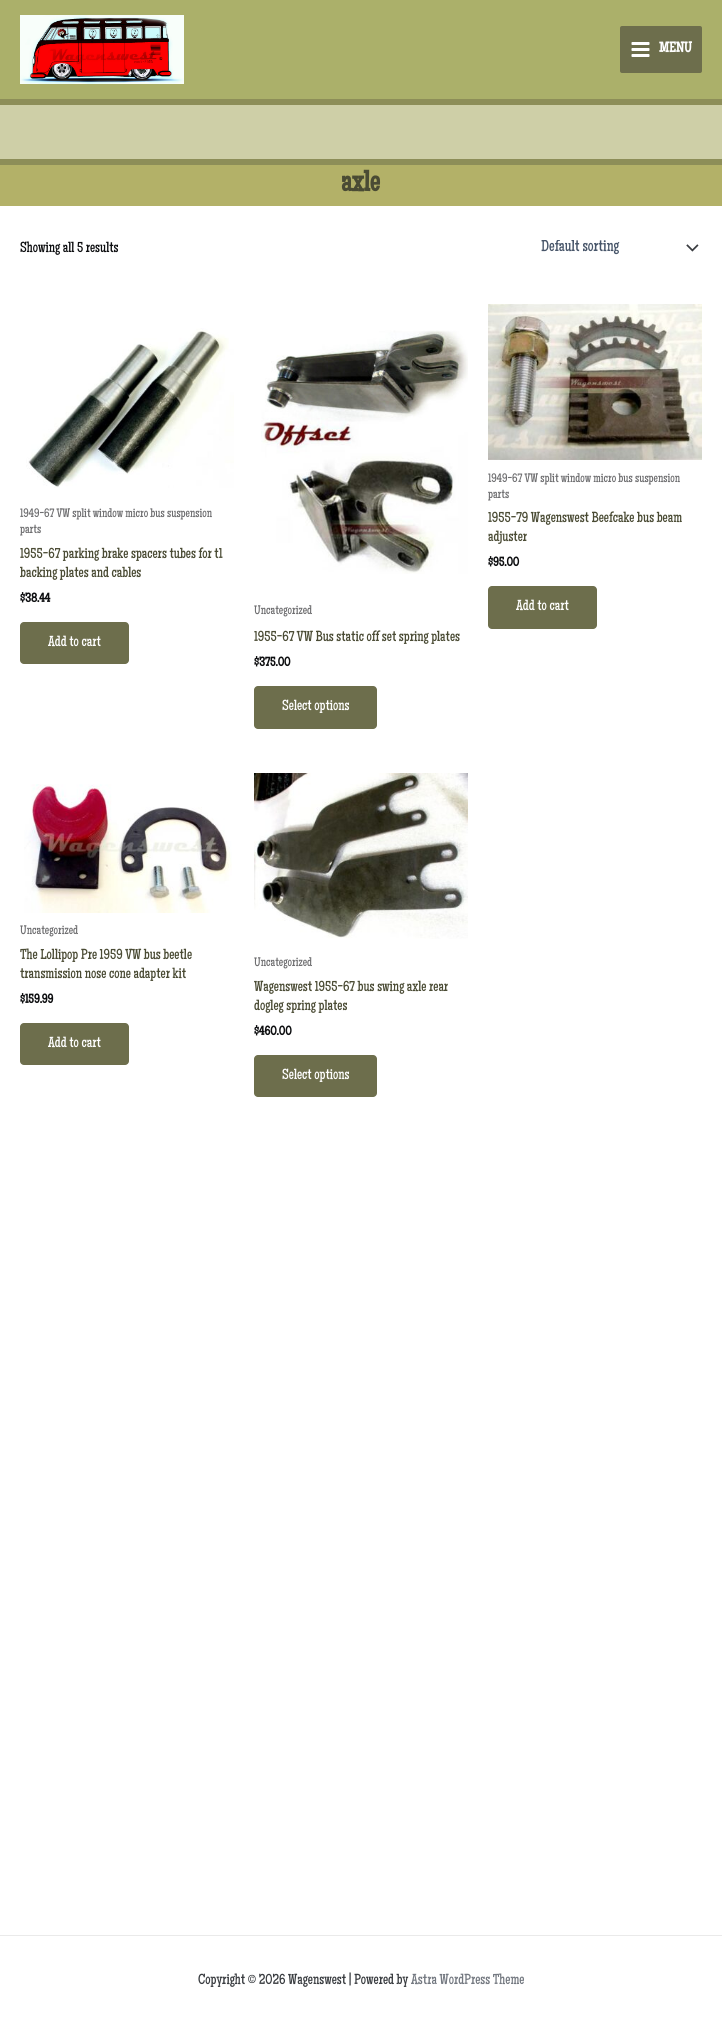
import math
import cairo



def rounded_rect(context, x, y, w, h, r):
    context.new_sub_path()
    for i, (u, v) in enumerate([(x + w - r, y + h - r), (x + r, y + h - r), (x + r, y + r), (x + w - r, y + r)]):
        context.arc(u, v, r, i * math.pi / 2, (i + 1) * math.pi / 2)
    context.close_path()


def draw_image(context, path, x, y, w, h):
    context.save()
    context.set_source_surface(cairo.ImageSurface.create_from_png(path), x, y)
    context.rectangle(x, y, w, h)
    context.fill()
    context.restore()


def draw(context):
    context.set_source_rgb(1, 1, 1)
    context.paint()
    context.set_source_rgb(171 / 255, 176 / 255, 106 / 255)
    context.rectangle(0, 0, 722, 99)
    context.fill()
    context.set_source_rgb(141 / 255, 142 / 255, 88 / 255)
    context.rectangle(0, 99, 722, 6)
    context.fill()
    draw_image(context, "images/1.png", 20, 15, 164, 69)
    context.set_source_rgb(109 / 255, 110 / 255, 76 / 255)
    rounded_rect(context, 620, 26, 82, 47, 2)
    context.fill()
    draw_image(context, "images/2.png", 631, 42, 19, 15)
    context.set_source_rgb(206 / 255, 207 / 255, 167 / 255)
    context.rectangle(0, 105, 722, 54)
    context.fill()
    context.set_source_rgb(141 / 255, 142 / 255, 88 / 255)
    context.rectangle(0, 159, 722, 6)
    context.fill()
    context.set_source_rgb(179 / 255, 177 / 255, 104 / 255)
    context.rectangle(0, 165, 722, 41)
    context.fill()
    draw_image(context, "images/3.png", 686, 244, 13, 8)
    draw_image(context, "images/4.png", 26, 328, 208, 160)
    context.set_source_rgb(109 / 255, 110 / 255, 76 / 255)
    rounded_rect(context, 20, 622, 109, 42, 4)
    context.fill()
    draw_image(context, "images/5.png", 488, 304, 214, 156)
    rounded_rect(context, 488, 586, 109, 43, 4)
    context.fill()
    draw_image(context, "images/6.png", 261, 330, 207, 244)
    rounded_rect(context, 254, 686, 123, 43, 4)
    context.fill()
    draw_image(context, "images/7.png", 24, 784, 208, 129)
    rounded_rect(context, 20, 1023, 109, 42, 4)
    context.fill()
    draw_image(context, "images/8.png", 254, 773, 214, 166)
    rounded_rect(context, 254, 1055, 123, 42, 4)
    context.fill()
    context.set_source_rgb(234 / 255, 234 / 255, 234 / 255)
    context.rectangle(0, 1935, 722, 1)
    context.fill()
    context.select_font_face("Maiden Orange", cairo.FontSlant.NORMAL, cairo.FontWeight.BOLD)
    context.set_font_size(14.6)
    context.set_source_rgb(1, 1, 1)
    context.move_to(659, 52)
    context.show_text("MENU")
    context.set_font_size(29)
    context.set_source_rgb(74 / 255, 75 / 255, 52 / 255)
    context.move_to(341, 191)
    context.show_text("axle")
    context.select_font_face("Maiden Orange")
    context.set_font_size(14.6)
    context.set_source_rgb(13 / 255, 14 / 255, 16 / 255)
    context.move_to(20, 252)
    context.show_text("Showing all 5 results")
    context.save()
    context.rectangle(541, 240, 129, 16)
    context.clip()
    context.set_font_size(16)
    context.set_source_rgb(71 / 255, 85 / 255, 105 / 255)
    context.move_to(541, 251)
    context.show_text("Default sorting")
    context.restore()
    context.set_font_size(12.4)
    context.set_source_rgb(110 / 255, 110 / 255, 112 / 255)
    context.move_to(20, 517)
    context.show_text("1949-67 VW split window micro bus suspension")
    context.move_to(20, 533)
    context.show_text("parts")
    context.set_font_size(14.6)
    context.set_source_rgb(74 / 255, 75 / 255, 52 / 255)
    context.move_to(20, 558)
    context.show_text("1955-67 parking brake spacers tubes for t1")
    context.move_to(20, 577)
    context.show_text("backing plates and cables")
    context.select_font_face("Maiden Orange", cairo.FontSlant.NORMAL, cairo.FontWeight.BOLD)
    context.set_font_size(13)
    context.set_source_rgb(13 / 255, 14 / 255, 16 / 255)
    context.move_to(20, 602)
    context.show_text("$38.44")
    context.select_font_face("Maiden Orange")
    context.set_font_size(14.6)
    context.set_source_rgb(1, 1, 1)
    context.move_to(48, 646)
    context.show_text("Add to cart")
    context.set_font_size(12.4)
    context.set_source_rgb(110 / 255, 110 / 255, 112 / 255)
    context.move_to(488, 482)
    context.show_text("1949-67 VW split window micro bus suspension")
    context.move_to(488, 498)
    context.show_text("parts")
    context.set_font_size(14.6)
    context.set_source_rgb(74 / 255, 75 / 255, 52 / 255)
    context.move_to(488, 522)
    context.show_text("1955-79 Wagenswest Beefcake bus beam")
    context.move_to(488, 541)
    context.show_text("adjuster")
    context.select_font_face("Maiden Orange", cairo.FontSlant.NORMAL, cairo.FontWeight.BOLD)
    context.set_font_size(13)
    context.set_source_rgb(13 / 255, 14 / 255, 16 / 255)
    context.move_to(488, 566)
    context.show_text("$95.00")
    context.select_font_face("Maiden Orange")
    context.set_font_size(14.6)
    context.set_source_rgb(1, 1, 1)
    context.move_to(516, 610)
    context.show_text("Add to cart")
    context.set_font_size(12.4)
    context.set_source_rgb(110 / 255, 110 / 255, 112 / 255)
    context.move_to(254, 614)
    context.show_text("Uncategorized")
    context.set_font_size(14.6)
    context.set_source_rgb(74 / 255, 75 / 255, 52 / 255)
    context.move_to(254, 641)
    context.show_text("1955-67 VW Bus static off set spring plates")
    context.select_font_face("Maiden Orange", cairo.FontSlant.NORMAL, cairo.FontWeight.BOLD)
    context.set_font_size(13)
    context.set_source_rgb(13 / 255, 14 / 255, 16 / 255)
    context.move_to(254, 666)
    context.show_text("$375.00")
    context.select_font_face("Maiden Orange")
    context.set_font_size(14.6)
    context.set_source_rgb(1, 1, 1)
    context.move_to(282, 710)
    context.show_text("Select options")
    context.set_font_size(12.4)
    context.set_source_rgb(110 / 255, 110 / 255, 112 / 255)
    context.move_to(20, 934)
    context.show_text("Uncategorized")
    context.set_font_size(14.6)
    context.set_source_rgb(74 / 255, 75 / 255, 52 / 255)
    context.move_to(20, 959)
    context.show_text("The Lollipop Pre 1959 VW bus beetle")
    context.move_to(20, 978)
    context.show_text("transmission nose cone adapter kit")
    context.select_font_face("Maiden Orange", cairo.FontSlant.NORMAL, cairo.FontWeight.BOLD)
    context.set_font_size(13)
    context.set_source_rgb(13 / 255, 14 / 255, 16 / 255)
    context.move_to(20, 1003)
    context.show_text("$159.99")
    context.select_font_face("Maiden Orange")
    context.set_font_size(14.6)
    context.set_source_rgb(1, 1, 1)
    context.move_to(48, 1047)
    context.show_text("Add to cart")
    context.set_font_size(12.4)
    context.set_source_rgb(110 / 255, 110 / 255, 112 / 255)
    context.move_to(254, 966)
    context.show_text("Uncategorized")
    context.set_font_size(14.6)
    context.set_source_rgb(74 / 255, 75 / 255, 52 / 255)
    context.move_to(254, 991)
    context.show_text("Wagenswest 1955-67 bus swing axle rear")
    context.move_to(254, 1010)
    context.show_text("dogleg spring plates")
    context.select_font_face("Maiden Orange", cairo.FontSlant.NORMAL, cairo.FontWeight.BOLD)
    context.set_font_size(13)
    context.set_source_rgb(13 / 255, 14 / 255, 16 / 255)
    context.move_to(254, 1035)
    context.show_text("$460.00")
    context.select_font_face("Maiden Orange")
    context.set_font_size(14.6)
    context.set_source_rgb(1, 1, 1)
    context.move_to(282, 1079)
    context.show_text("Select options")
    context.set_source_rgb(57 / 255, 60 / 255, 64 / 255)
    context.move_to(198, 1984)
    context.show_text("Copyright © 2026 Wagenswest | Powered by")
    context.set_source_rgb(115 / 255, 120 / 255, 128 / 255)
    context.move_to(411, 1984)
    context.show_text("Astra WordPress Theme")


surface = cairo.ImageSurface(cairo.Format.RGB24, 722, 2036)
context = cairo.Context(surface)
options = cairo.FontOptions()
options.set_hint_metrics(cairo.HintMetrics.OFF)
options.set_hint_style(cairo.HintStyle.NONE)
context.set_font_options(options)
context.set_miter_limit(4)
draw(context)
surface.write_to_png("out.png")
